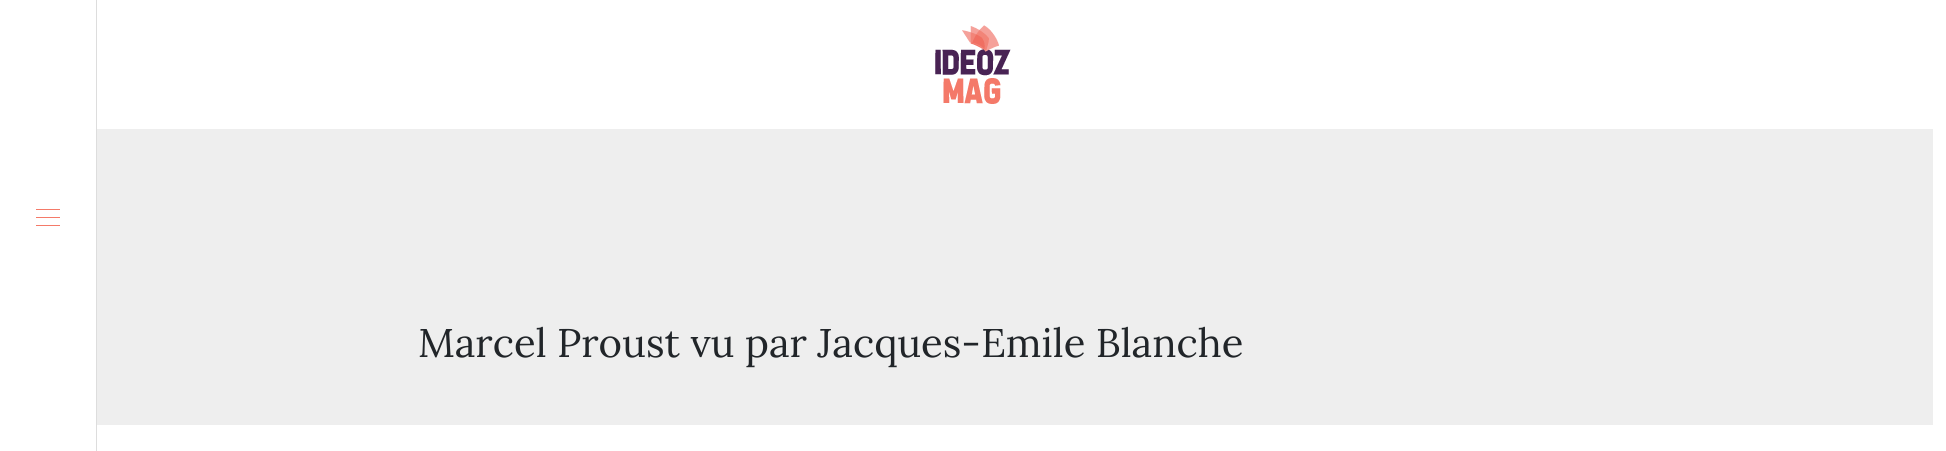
import math
import cairo



def draw_image(context, path, x, y, w, h):
    context.save()
    context.set_source_surface(cairo.ImageSurface.create_from_png(path), x, y)
    context.rectangle(x, y, w, h)
    context.fill()
    context.restore()


def draw(context):
    context.set_source_rgb(1, 1, 1)
    context.paint()
    context.set_source_rgb(221 / 255, 221 / 255, 221 / 255)
    context.rectangle(96, 0, 1, 451)
    context.fill()
    context.set_source_rgb(244 / 255, 122 / 255, 105 / 255)
    context.rectangle(36, 209, 24, 1)
    context.fill()
    context.rectangle(36, 217, 24, 1)
    context.fill()
    context.rectangle(36, 225, 24, 1)
    context.fill()
    draw_image(context, "images/1.png", 935, 25, 76, 79)
    context.set_source_rgb(238 / 255, 238 / 255, 238 / 255)
    context.rectangle(97, 129, 1836, 296)
    context.fill()
    context.select_font_face("Lora")
    context.set_font_size(40)
    context.set_source_rgb(33 / 255, 37 / 255, 41 / 255)
    context.move_to(418, 357)
    context.show_text("Marcel Proust vu par Jacques-Emile Blanche")


surface = cairo.ImageSurface(cairo.Format.RGB24, 1946, 451)
context = cairo.Context(surface)
options = cairo.FontOptions()
options.set_hint_metrics(cairo.HintMetrics.OFF)
options.set_hint_style(cairo.HintStyle.NONE)
context.set_font_options(options)
context.set_miter_limit(4)
draw(context)
surface.write_to_png("out.png")
